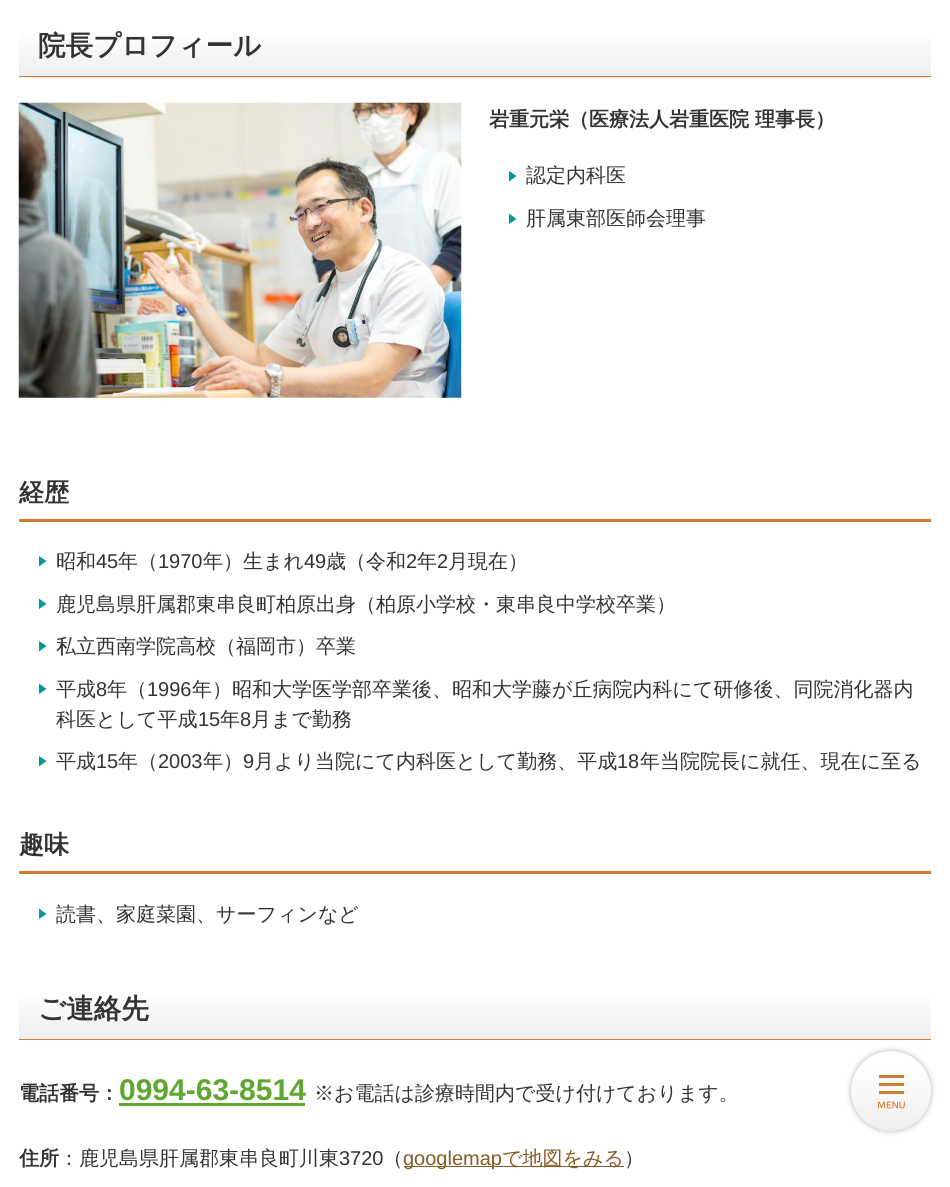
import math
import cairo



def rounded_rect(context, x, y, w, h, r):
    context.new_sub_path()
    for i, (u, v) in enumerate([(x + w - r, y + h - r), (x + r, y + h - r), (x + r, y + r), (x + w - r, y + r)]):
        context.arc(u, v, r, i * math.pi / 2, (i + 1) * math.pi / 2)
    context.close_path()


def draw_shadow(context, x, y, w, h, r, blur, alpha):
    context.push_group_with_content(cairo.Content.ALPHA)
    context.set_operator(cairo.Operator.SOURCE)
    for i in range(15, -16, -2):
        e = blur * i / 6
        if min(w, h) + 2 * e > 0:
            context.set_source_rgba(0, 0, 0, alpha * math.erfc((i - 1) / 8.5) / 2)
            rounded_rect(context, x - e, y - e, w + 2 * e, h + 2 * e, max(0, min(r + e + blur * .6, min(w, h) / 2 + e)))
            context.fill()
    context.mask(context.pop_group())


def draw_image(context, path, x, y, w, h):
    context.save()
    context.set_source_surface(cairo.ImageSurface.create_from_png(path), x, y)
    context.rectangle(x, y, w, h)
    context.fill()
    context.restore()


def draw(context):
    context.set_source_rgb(1, 1, 1)
    context.paint()
    gradient = cairo.LinearGradient(475, 16, 475, 78)
    gradient.add_color_stop_rgba(0.2, 1, 1, 1, 1)
    gradient.add_color_stop_rgba(1, 238 / 255, 238 / 255, 238 / 255, 1)
    context.set_source(gradient)
    context.rectangle(19, 36, 912, 42)
    context.fill()
    context.set_source_rgb(204 / 255, 125 / 255, 47 / 255)
    context.rectangle(19, 76, 912, 1)
    context.fill()
    draw_image(context, "images/1.png", 18, 102, 444, 296)
    context.set_source_rgb(0, 153 / 255, 153 / 255)
    context.set_fill_rule(cairo.FillRule.EVEN_ODD)
    context.new_path()
    context.move_to(509, 171)
    context.line_to(516.5, 176)
    context.line_to(509, 181.5)
    context.close_path()
    context.move_to(509, 213.5)
    context.line_to(516.5, 219)
    context.line_to(509, 224)
    context.close_path()
    context.fill()
    context.set_source_rgb(204 / 255, 125 / 255, 47 / 255)
    context.rectangle(19, 519, 912, 3)
    context.fill()
    context.set_source_rgb(0, 153 / 255, 153 / 255)
    context.new_path()
    context.move_to(39, 556)
    context.line_to(46.5, 561)
    context.line_to(39, 566.5)
    context.close_path()
    context.move_to(39, 598.5)
    context.line_to(46.5, 604)
    context.line_to(39, 609)
    context.close_path()
    context.fill()
    context.new_path()
    context.move_to(39, 641)
    context.line_to(46.5, 646)
    context.line_to(39, 651.5)
    context.close_path()
    context.move_to(39, 683.5)
    context.line_to(46.5, 689)
    context.line_to(39, 694)
    context.close_path()
    context.fill()
    context.new_path()
    context.move_to(39, 756)
    context.line_to(46.5, 761)
    context.line_to(39, 766.5)
    context.close_path()
    context.fill()
    context.set_source_rgb(204 / 255, 125 / 255, 47 / 255)
    context.rectangle(19, 871, 912, 3)
    context.fill()
    context.set_source_rgb(0, 153 / 255, 153 / 255)
    context.new_path()
    context.move_to(39, 908.5)
    context.line_to(46.5, 914)
    context.line_to(39, 919)
    context.close_path()
    context.fill()
    gradient = cairo.LinearGradient(475, 979, 475, 1040)
    gradient.add_color_stop_rgba(0.2, 1, 1, 1, 1)
    gradient.add_color_stop_rgba(1, 238 / 255, 238 / 255, 238 / 255, 1)
    context.set_source(gradient)
    context.rectangle(19, 998, 912, 41)
    context.fill()
    context.set_source_rgb(204 / 255, 125 / 255, 47 / 255)
    context.rectangle(19, 1039, 912, 1)
    context.fill()
    context.set_source_rgb(96 / 255, 167 / 255, 49 / 255)
    context.rectangle(119, 1103, 186, 3)
    context.fill()
    context.set_source_rgb(134 / 255, 90 / 255, 37 / 255)
    context.rectangle(404, 1166, 220, 1)
    context.fill()
    context.set_source_rgb(0, 0, 0)
    draw_shadow(context, 851, 1051, 80, 80, 40, 3, 0.3)
    gradient = cairo.LinearGradient(891, 1051, 891, 1131)
    gradient.add_color_stop_rgba(0.2, 1, 1, 1, 1)
    gradient.add_color_stop_rgba(1, 238 / 255, 238 / 255, 238 / 255, 1)
    context.set_source(gradient)
    context.arc(891, 1091, 40, 0, 2 * math.pi)
    context.fill()
    draw_image(context, "images/2.png", 877, 1075, 28, 34)
    context.select_font_face("WenQuanYi Zen Hei", cairo.FontSlant.NORMAL, cairo.FontWeight.BOLD)
    context.set_font_size(27.5)
    context.set_source_rgb(51 / 255, 51 / 255, 51 / 255)
    context.move_to(38, 55)
    context.show_text("院長プロフィール")
    context.set_font_size(20)
    context.move_to(489, 126)
    context.show_text("岩重元栄（医療法人岩重医院 理事長）")
    context.select_font_face("WenQuanYi Zen Hei Medium")
    context.move_to(526, 182)
    context.show_text("認定内科医")
    context.move_to(526, 225)
    context.show_text("肝属東部医師会理事")
    context.select_font_face("WenQuanYi Zen Hei", cairo.FontSlant.NORMAL, cairo.FontWeight.BOLD)
    context.set_font_size(25)
    context.move_to(19, 501)
    context.show_text("経歴")
    context.select_font_face("WenQuanYi Zen Hei Medium")
    context.set_font_size(20)
    context.move_to(56, 568)
    context.show_text("昭和")
    context.select_font_face("Liberation Sans")
    context.move_to(96, 568)
    context.show_text("45")
    context.select_font_face("WenQuanYi Zen Hei Medium")
    context.move_to(118, 568)
    context.show_text("年（")
    context.select_font_face("Liberation Sans")
    context.move_to(158, 568)
    context.show_text("1970")
    context.select_font_face("WenQuanYi Zen Hei Medium")
    context.move_to(203, 568)
    context.show_text("年）生まれ")
    context.select_font_face("Liberation Sans")
    context.move_to(304, 568)
    context.show_text("49")
    context.select_font_face("WenQuanYi Zen Hei Medium")
    context.move_to(326, 568)
    context.show_text("歳（令和")
    context.select_font_face("Liberation Sans")
    context.move_to(406, 568)
    context.show_text("2")
    context.select_font_face("WenQuanYi Zen Hei Medium")
    context.move_to(417, 568)
    context.show_text("年")
    context.select_font_face("Liberation Sans")
    context.move_to(437, 568)
    context.show_text("2")
    context.select_font_face("WenQuanYi Zen Hei Medium")
    context.move_to(448, 568)
    context.show_text("月現在）")
    context.move_to(56, 611)
    context.show_text("鹿児島県肝属郡東串良町柏原出身（柏原小学校・東串良中学校卒業）")
    context.move_to(56, 653)
    context.show_text("私立西南学院高校（福岡市）卒業")
    context.move_to(56, 696)
    context.show_text("平成")
    context.select_font_face("Liberation Sans")
    context.move_to(96, 696)
    context.show_text("8")
    context.select_font_face("WenQuanYi Zen Hei Medium")
    context.move_to(107, 696)
    context.show_text("年（")
    context.select_font_face("Liberation Sans")
    context.move_to(147, 696)
    context.show_text("1996")
    context.select_font_face("WenQuanYi Zen Hei Medium")
    context.move_to(192, 696)
    context.show_text("年）昭和大学医学部卒業後、昭和大学藤が丘病院内科にて研修後、同院消化器内")
    context.move_to(56, 726)
    context.show_text("科医として平成")
    context.select_font_face("Liberation Sans")
    context.move_to(198, 726)
    context.show_text("15")
    context.select_font_face("WenQuanYi Zen Hei Medium")
    context.move_to(220, 726)
    context.show_text("年")
    context.select_font_face("Liberation Sans")
    context.move_to(240, 726)
    context.show_text("8")
    context.select_font_face("WenQuanYi Zen Hei Medium")
    context.move_to(251, 726)
    context.show_text("月まで勤務")
    context.move_to(56, 768)
    context.show_text("平成")
    context.select_font_face("Liberation Sans")
    context.move_to(96, 768)
    context.show_text("15")
    context.select_font_face("WenQuanYi Zen Hei Medium")
    context.move_to(118, 768)
    context.show_text("年（")
    context.select_font_face("Liberation Sans")
    context.move_to(158, 768)
    context.show_text("2003")
    context.select_font_face("WenQuanYi Zen Hei Medium")
    context.move_to(203, 768)
    context.show_text("年）")
    context.select_font_face("Liberation Sans")
    context.move_to(243, 768)
    context.show_text("9")
    context.select_font_face("WenQuanYi Zen Hei Medium")
    context.move_to(254, 768)
    context.show_text("月より当院にて内科医として勤務、平成")
    context.select_font_face("Liberation Sans")
    context.move_to(617, 768)
    context.show_text("18")
    context.select_font_face("WenQuanYi Zen Hei Medium")
    context.move_to(640, 768)
    context.show_text("年当院院長に就任、現在に至る")
    context.select_font_face("WenQuanYi Zen Hei", cairo.FontSlant.NORMAL, cairo.FontWeight.BOLD)
    context.set_font_size(25)
    context.move_to(19, 853)
    context.show_text("趣味")
    context.select_font_face("WenQuanYi Zen Hei Medium")
    context.set_font_size(20)
    context.move_to(56, 921)
    context.show_text("読書、家庭菜園、サーフィンなど")
    context.select_font_face("WenQuanYi Zen Hei", cairo.FontSlant.NORMAL, cairo.FontWeight.BOLD)
    context.set_font_size(27.5)
    context.move_to(38, 1018)
    context.show_text("ご連絡先")
    context.set_font_size(20)
    context.move_to(19, 1100)
    context.show_text("電話番号：")
    context.select_font_face("Liberation Sans", cairo.FontSlant.NORMAL, cairo.FontWeight.BOLD)
    context.set_font_size(30)
    context.set_source_rgb(96 / 255, 167 / 255, 49 / 255)
    context.move_to(119, 1100)
    context.show_text("0994-63-8514")
    context.select_font_face("WenQuanYi Zen Hei Medium")
    context.set_font_size(20)
    context.set_source_rgb(51 / 255, 51 / 255, 51 / 255)
    context.move_to(314, 1100)
    context.show_text("※お電話は診療時間内で受け付けております。")
    context.select_font_face("WenQuanYi Zen Hei", cairo.FontSlant.NORMAL, cairo.FontWeight.BOLD)
    context.move_to(19, 1165)
    context.show_text("住所")
    context.select_font_face("WenQuanYi Zen Hei Medium")
    context.move_to(59, 1165)
    context.show_text("：鹿児島県肝属郡東串良町川東")
    context.select_font_face("Liberation Sans")
    context.move_to(339, 1165)
    context.show_text("3720")
    context.select_font_face("WenQuanYi Zen Hei Medium")
    context.move_to(383, 1165)
    context.show_text("（")
    context.select_font_face("Liberation Sans")
    context.set_source_rgb(134 / 255, 90 / 255, 37 / 255)
    context.move_to(403, 1165)
    context.show_text("googlemap")
    context.select_font_face("WenQuanYi Zen Hei Medium")
    context.move_to(502, 1165)
    context.show_text("で地図をみる")
    context.set_source_rgb(51 / 255, 51 / 255, 51 / 255)
    context.move_to(624, 1165)
    context.show_text("）")


surface = cairo.ImageSurface(cairo.Format.RGB24, 950, 1187)
context = cairo.Context(surface)
options = cairo.FontOptions()
options.set_hint_metrics(cairo.HintMetrics.OFF)
options.set_hint_style(cairo.HintStyle.NONE)
context.set_font_options(options)
context.set_miter_limit(4)
draw(context)
surface.write_to_png("out.png")
